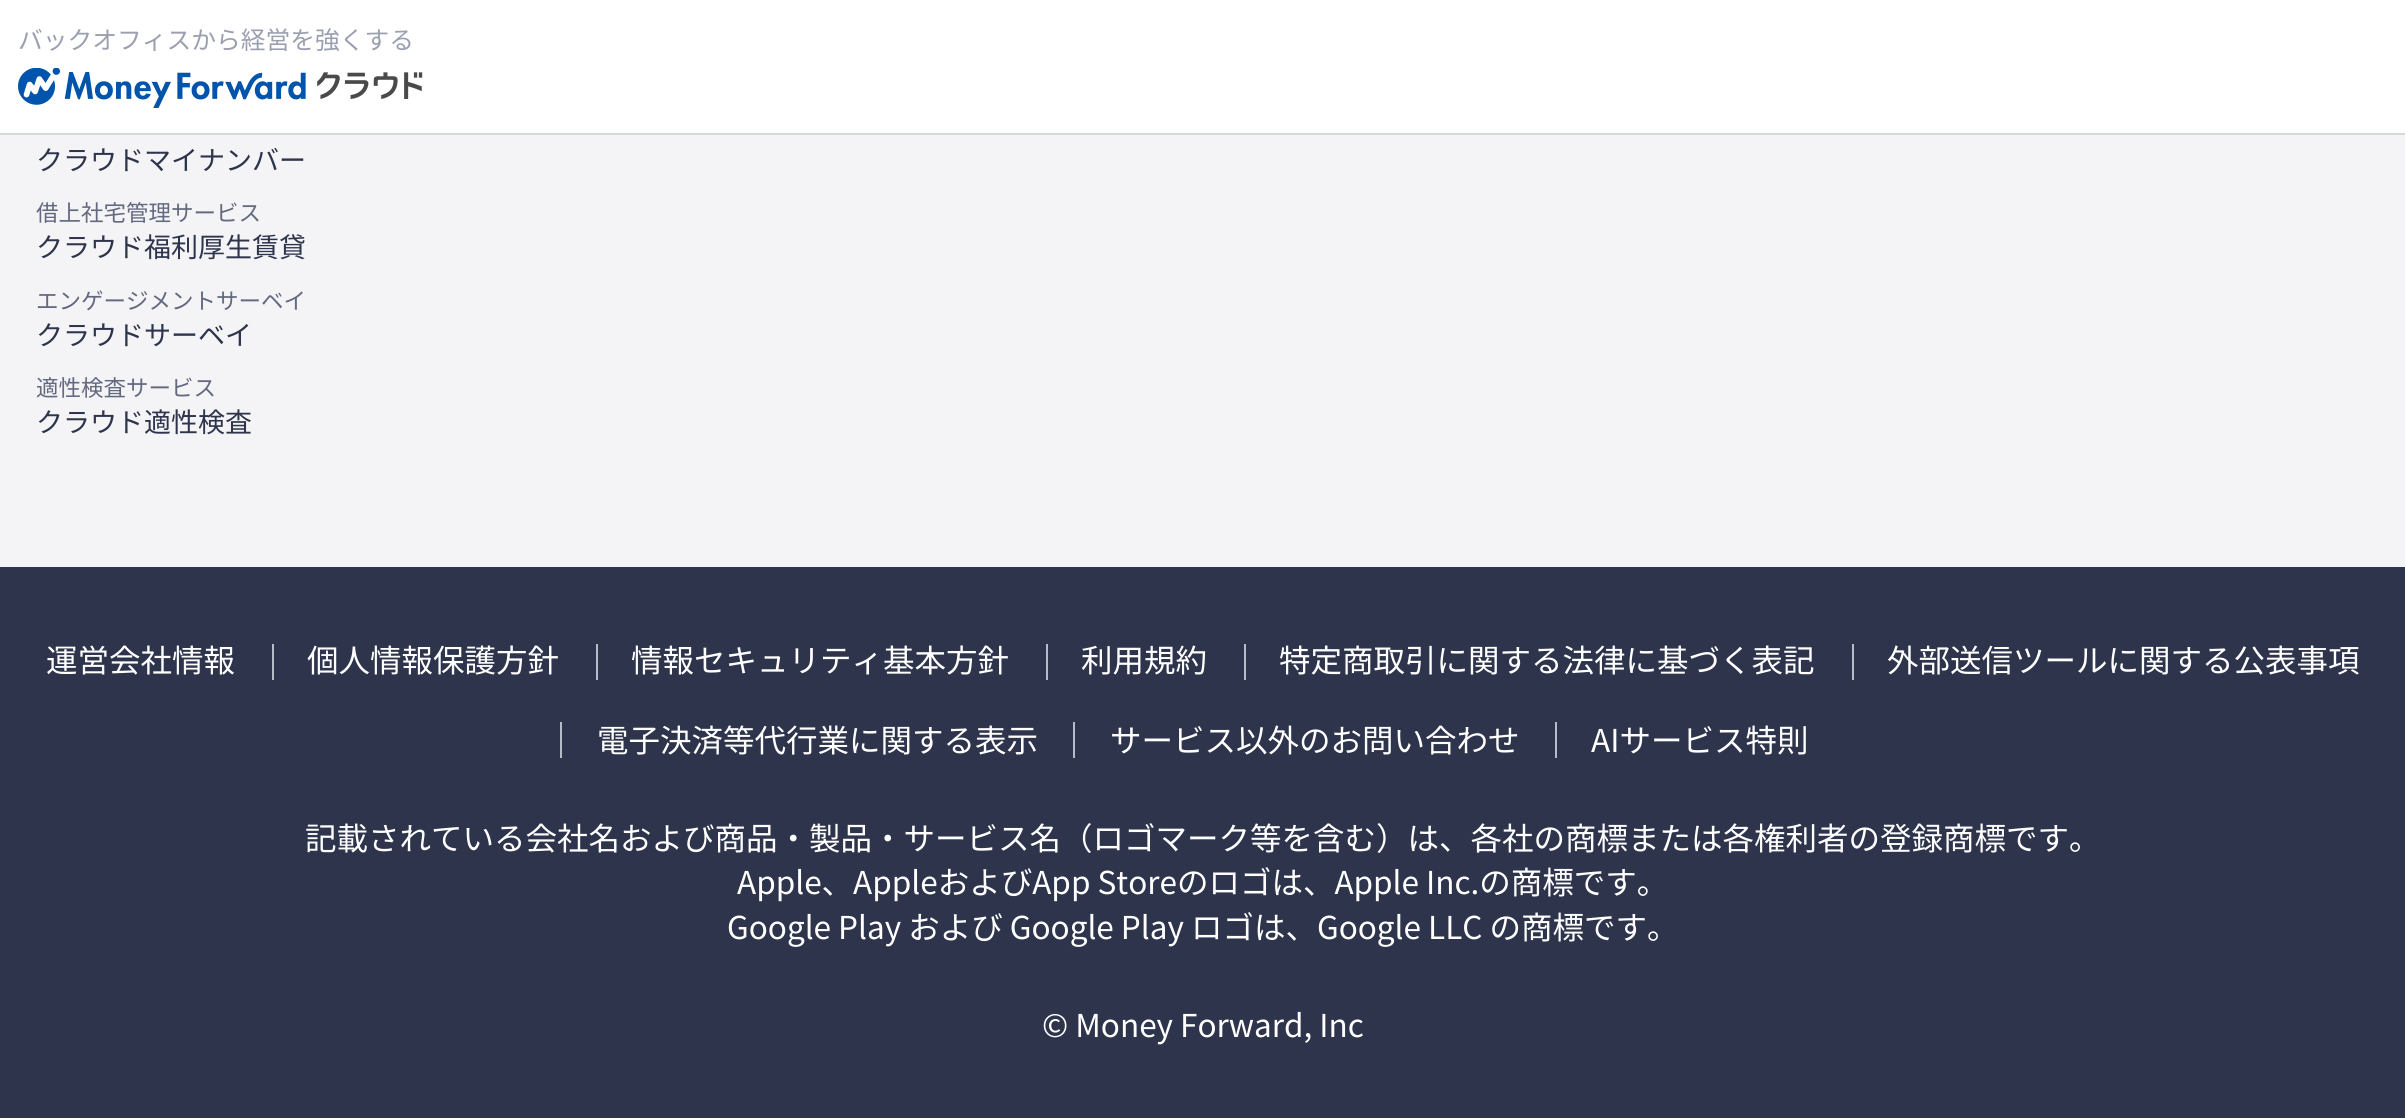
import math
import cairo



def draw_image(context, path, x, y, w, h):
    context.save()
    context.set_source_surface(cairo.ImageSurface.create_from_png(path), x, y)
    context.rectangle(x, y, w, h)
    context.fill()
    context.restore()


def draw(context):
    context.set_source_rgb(45 / 255, 52 / 255, 75 / 255)
    context.paint()
    context.set_source_rgb(1, 1, 1)
    context.rectangle(0, 0, 2405, 133)
    context.fill()
    context.set_source_rgb(214 / 255, 216 / 255, 224 / 255)
    context.rectangle(0, 133, 2405, 2)
    context.fill()
    draw_image(context, "images/1.png", 18, 68, 405, 40)
    context.set_source_rgb(244 / 255, 244 / 255, 247 / 255)
    context.rectangle(0, 135, 2405, 432)
    context.fill()
    context.set_source_rgb(184 / 255, 188 / 255, 201 / 255)
    context.rectangle(272, 644, 2, 36)
    context.fill()
    context.rectangle(596, 644, 2, 36)
    context.fill()
    context.rectangle(1046, 644, 2, 36)
    context.fill()
    context.rectangle(1244, 644, 2, 36)
    context.fill()
    context.rectangle(1852, 644, 2, 36)
    context.fill()
    context.rectangle(560, 722, 2, 36)
    context.fill()
    context.rectangle(1073, 722, 2, 36)
    context.fill()
    context.rectangle(1555, 722, 2, 36)
    context.fill()
    context.select_font_face("Noto Sans JP")
    context.set_font_size(24.75)
    context.set_source_rgb(155 / 255, 160 / 255, 177 / 255)
    context.move_to(18, 49)
    context.show_text("バックオフィスから経営を強くする")
    context.set_font_size(27)
    context.set_source_rgb(45 / 255, 52 / 255, 75 / 255)
    context.move_to(36, 170)
    context.show_text("クラウドマイナンバー")
    context.set_font_size(22.5)
    context.set_source_rgb(99 / 255, 105 / 255, 127 / 255)
    context.move_to(36, 221)
    context.show_text("借上社宅管理サービス")
    context.set_font_size(27)
    context.set_source_rgb(45 / 255, 52 / 255, 75 / 255)
    context.move_to(36, 257)
    context.show_text("クラウド福利厚生賃貸")
    context.set_font_size(22.5)
    context.set_source_rgb(99 / 255, 105 / 255, 127 / 255)
    context.move_to(36, 309)
    context.show_text("エンゲージメントサーベイ")
    context.set_font_size(27)
    context.set_source_rgb(45 / 255, 52 / 255, 75 / 255)
    context.move_to(36, 345)
    context.show_text("クラウドサーベイ")
    context.set_font_size(22.5)
    context.set_source_rgb(99 / 255, 105 / 255, 127 / 255)
    context.move_to(36, 396)
    context.show_text("適性検査サービス")
    context.set_font_size(27)
    context.set_source_rgb(45 / 255, 52 / 255, 75 / 255)
    context.move_to(36, 432)
    context.show_text("クラウド適性検査")
    context.set_font_size(31.5)
    context.set_source_rgb(1, 1, 1)
    context.move_to(46, 672)
    context.show_text("運営会社情報")
    context.move_to(307, 672)
    context.show_text("個人情報保護方針")
    context.move_to(631, 672)
    context.show_text("情報セキュリティ基本方針")
    context.move_to(1081, 672)
    context.show_text("利用規約")
    context.move_to(1279, 672)
    context.show_text("特定商取引に関する法律に基づく表記")
    context.move_to(1887, 672)
    context.show_text("外部送信ツールに関する公表事項")
    context.move_to(597, 752)
    context.show_text("電子決済等代行業に関する表示")
    context.move_to(1110, 752)
    context.show_text("サービス以外のお問い合わせ")
    context.move_to(1591, 752)
    context.show_text("AIサービス特則")
    context.move_to(305, 850)
    context.show_text("記載されている会社名および商品・製品・サービス名（ロゴマーク等を含む）は、各社の商標または各権利者の登録商標です。")
    context.move_to(737, 894)
    context.show_text("Apple、AppleおよびApp Storeのロゴは、Apple Inc.の商標です。")
    context.move_to(727, 939)
    context.show_text("Google Play および Google Play ロゴは、Google LLC の商標です。")
    context.move_to(1042, 1037)
    context.show_text("© Money Forward, Inc")


surface = cairo.ImageSurface(cairo.Format.RGB24, 2405, 1118)
context = cairo.Context(surface)
options = cairo.FontOptions()
options.set_hint_metrics(cairo.HintMetrics.OFF)
options.set_hint_style(cairo.HintStyle.NONE)
context.set_font_options(options)
context.set_miter_limit(4)
draw(context)
surface.write_to_png("out.png")
